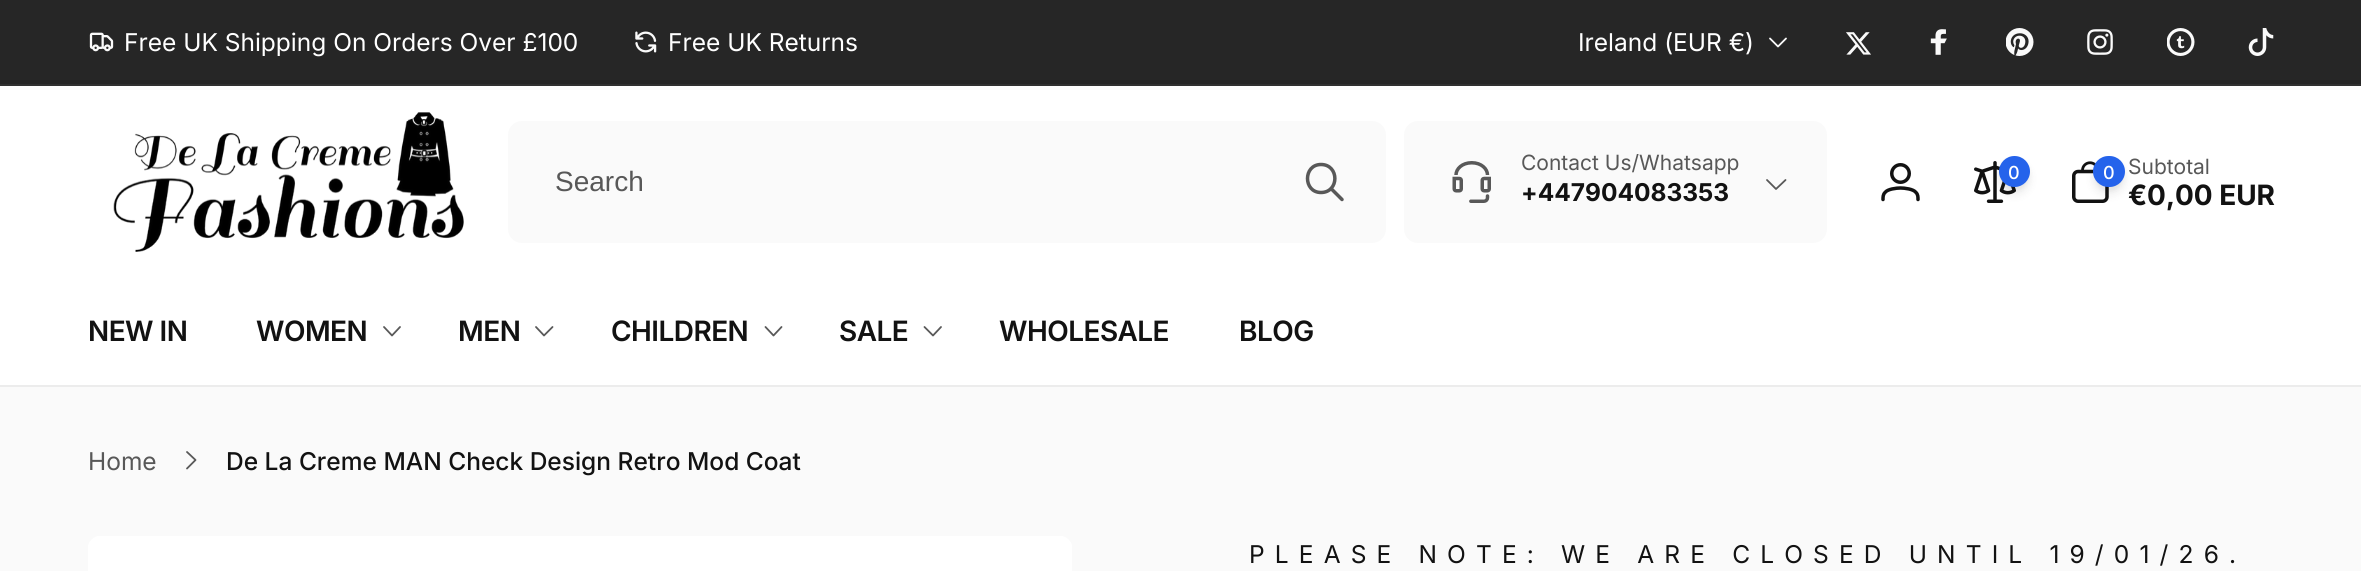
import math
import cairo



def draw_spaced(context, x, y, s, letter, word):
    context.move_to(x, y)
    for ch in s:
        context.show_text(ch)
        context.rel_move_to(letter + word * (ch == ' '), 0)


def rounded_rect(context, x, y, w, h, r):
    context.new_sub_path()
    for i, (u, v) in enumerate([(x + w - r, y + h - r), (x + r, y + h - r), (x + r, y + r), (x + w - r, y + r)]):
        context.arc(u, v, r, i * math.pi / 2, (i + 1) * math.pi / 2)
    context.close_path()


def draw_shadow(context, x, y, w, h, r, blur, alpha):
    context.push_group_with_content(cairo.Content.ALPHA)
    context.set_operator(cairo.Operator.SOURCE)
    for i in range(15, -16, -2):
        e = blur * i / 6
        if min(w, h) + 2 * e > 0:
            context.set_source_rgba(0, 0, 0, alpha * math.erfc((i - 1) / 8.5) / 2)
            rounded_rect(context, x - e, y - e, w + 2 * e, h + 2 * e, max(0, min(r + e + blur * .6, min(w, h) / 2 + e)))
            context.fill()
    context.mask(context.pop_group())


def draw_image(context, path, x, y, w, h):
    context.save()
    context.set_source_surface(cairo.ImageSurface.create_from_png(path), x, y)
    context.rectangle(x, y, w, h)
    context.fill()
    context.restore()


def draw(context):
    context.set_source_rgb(1, 1, 1)
    context.paint()
    context.set_source_rgb(38 / 255, 38 / 255, 38 / 255)
    context.rectangle(0, 0, 2361, 84)
    context.fill()
    context.set_source_rgb(49 / 255, 49 / 255, 49 / 255)
    context.rectangle(0, 84, 2361, 2)
    context.fill()
    draw_image(context, "images/1.png", 89, 32, 25, 20)
    draw_image(context, "images/2.png", 635, 31, 22, 22)
    context.new_path()
    context.move_to(1786, 38.5)
    context.line_to(1778, 46.5)
    context.line_to(1770, 38.5)
    context.set_source_rgb(250 / 255, 250 / 255, 250 / 255)
    context.set_line_width(1.8)
    context.set_line_cap(cairo.LineCap.ROUND)
    context.set_line_join(cairo.LineJoin.ROUND)
    context.stroke()
    draw_image(context, "images/3.png", 1846, 32, 25, 23)
    draw_image(context, "images/4.png", 1930, 29, 17, 26)
    draw_image(context, "images/5.png", 2006, 28, 28, 28)
    draw_image(context, "images/6.png", 2087, 29, 26, 26)
    draw_image(context, "images/7.png", 2167, 28, 28, 28)
    draw_image(context, "images/8.png", 2248, 28, 26, 28)
    context.set_source_rgb(236 / 255, 236 / 255, 236 / 255)
    context.rectangle(0, 385, 2361, 2)
    context.fill()
    draw_image(context, "images/9.png", 113, 112, 351, 140)
    context.set_source_rgb(250 / 255, 250 / 255, 250 / 255)
    rounded_rect(context, 508, 121, 878, 122, 14)
    context.fill()
    context.new_path()
    context.move_to(1342, 199.5)
    context.line_to(1331, 188.5)
    context.move_to(1321, 192.5)
    context.curve_to(1339.5, 192.5, 1339.5, 164.5, 1321, 164.5)
    context.curve_to(1303, 164.5, 1303, 192.5, 1321, 192.5)
    context.close_path()
    context.set_source_rgb(88 / 255, 88 / 255, 88 / 255)
    context.set_line_width(3.5)
    context.stroke()
    context.set_source_rgb(250 / 255, 250 / 255, 250 / 255)
    rounded_rect(context, 1404, 121, 423, 122, 14)
    context.fill()
    draw_image(context, "images/10.png", 1452, 161, 39, 42)
    context.new_path()
    context.move_to(1785.5, 180)
    context.line_to(1776, 189)
    context.line_to(1767, 180)
    context.set_source_rgb(88 / 255, 88 / 255, 88 / 255)
    context.set_line_width(1.8)
    context.stroke()
    context.arc(1900.5, 173.5, 8.75, 0, 2 * math.pi)
    context.set_source_rgb(18 / 255, 18 / 255, 18 / 255)
    context.set_line_width(3.5)
    context.set_line_cap(cairo.LineCap.BUTT)
    context.set_line_join(cairo.LineJoin.MITER)
    context.stroke()
    context.new_path()
    context.move_to(1900.5, 188)
    context.curve_to(1904.5, 188, 1913.5, 189, 1916, 192.5)
    context.curve_to(1918, 194.5, 1918, 197, 1918, 199.5)
    context.move_to(1900.5, 188)
    context.curve_to(1896.5, 188, 1887.5, 189, 1885, 192.5)
    context.curve_to(1883, 194.5, 1883, 197, 1883, 199.5)
    context.set_line_cap(cairo.LineCap.ROUND)
    context.stroke()
    draw_image(context, "images/11.png", 1974, 161, 42, 42)
    context.set_source_rgb(18 / 255, 18 / 255, 18 / 255)
    draw_shadow(context, 2000, 161, 28, 28, 14, 3.5, 0.06)
    draw_shadow(context, 2000, 165, 28, 28, 14, 5, 0.1)
    context.set_source_rgb(37 / 255, 99 / 255, 235 / 255)
    context.arc(2014.5, 171.5, 15.5, 0, 2 * math.pi)
    context.fill()
    draw_image(context, "images/12.png", 2072, 161, 37, 42)
    context.set_source_rgb(18 / 255, 18 / 255, 18 / 255)
    draw_shadow(context, 2095, 161, 28, 28, 14, 3.5, 0.06)
    draw_shadow(context, 2095, 165, 28, 28, 14, 5, 0.1)
    context.set_source_rgb(37 / 255, 99 / 255, 235 / 255)
    rounded_rect(context, 2093, 156, 32, 31, 15.5)
    context.fill()
    context.new_path()
    context.move_to(400, 327)
    context.line_to(392, 335.5)
    context.line_to(384, 327)
    context.set_source_rgb(89 / 255, 89 / 255, 89 / 255)
    context.set_line_width(1.8)
    context.set_line_join(cairo.LineJoin.ROUND)
    context.stroke()
    context.new_path()
    context.move_to(552.5, 327)
    context.line_to(544, 335.5)
    context.line_to(536, 327)
    context.stroke()
    context.new_path()
    context.move_to(781.5, 327)
    context.line_to(773.5, 335.5)
    context.line_to(765.5, 327)
    context.stroke()
    context.new_path()
    context.move_to(941, 327)
    context.line_to(933, 335.5)
    context.line_to(924.5, 327)
    context.stroke()
    context.set_source_rgb(250 / 255, 250 / 255, 250 / 255)
    context.rectangle(0, 387, 2361, 184)
    context.fill()
    context.new_path()
    context.move_to(187, 452)
    context.line_to(195.5, 460)
    context.line_to(187, 468.5)
    context.set_source_rgb(88 / 255, 88 / 255, 88 / 255)
    context.stroke()
    draw_image(context, "images/13.png", 88, 536, 984, 35)
    context.select_font_face("Inter")
    context.set_font_size(24.5)
    context.set_source_rgb(1, 1, 1)
    context.move_to(124, 51)
    context.show_text("Free UK Shipping On Orders Over £100")
    context.move_to(668, 51)
    context.show_text("Free UK Returns")
    context.move_to(1578, 51)
    context.show_text("Ireland (EUR €)")
    context.select_font_face("Liberation Sans")
    context.set_font_size(28)
    context.set_source_rgb(88 / 255, 88 / 255, 88 / 255)
    context.move_to(555, 191)
    context.show_text("Search")
    context.select_font_face("Inter")
    context.set_font_size(21)
    context.move_to(1521, 170)
    context.show_text("Contact Us/Whatsapp")
    context.select_font_face("Inter", cairo.FontSlant.NORMAL, cairo.FontWeight.BOLD)
    context.set_font_size(24.5)
    context.set_source_rgb(18 / 255, 18 / 255, 18 / 255)
    context.move_to(1521, 201)
    context.show_text("+447904083353")
    context.select_font_face("Inter Medium")
    context.set_font_size(18)
    context.set_source_rgb(1, 1, 1)
    draw_spaced(context, 2008, 179, "0", 1, 0)
    context.move_to(2103, 179)
    context.show_text("0")
    context.select_font_face("Inter")
    context.set_font_size(21)
    context.set_source_rgb(88 / 255, 88 / 255, 88 / 255)
    context.move_to(2128, 174)
    context.show_text("Subtotal")
    context.select_font_face("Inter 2", cairo.FontSlant.NORMAL, cairo.FontWeight.BOLD)
    context.set_font_size(28)
    context.set_source_rgb(18 / 255, 18 / 255, 18 / 255)
    context.move_to(2128, 205)
    context.show_text("€0,00 EUR")
    context.select_font_face("Inter SemiBold")
    draw_spaced(context, 88, 341, "NEW IN", -0.5, 0)
    draw_spaced(context, 256, 341, "WOMEN", -0.5, 0)
    draw_spaced(context, 458, 341, "MEN", -0.5, 0)
    draw_spaced(context, 611, 341, "CHILDREN", -0.5, 0)
    draw_spaced(context, 839, 341, "SALE", -0.5, 0)
    draw_spaced(context, 999, 341, "WHOLESALE", -0.5, 0)
    draw_spaced(context, 1239, 341, "BLOG", -0.5, 0)
    context.select_font_face("Inter")
    context.set_font_size(24.5)
    context.set_source_rgb(88 / 255, 88 / 255, 88 / 255)
    context.move_to(88, 470)
    context.show_text("Home")
    context.select_font_face("Inter Medium")
    context.set_source_rgb(18 / 255, 18 / 255, 18 / 255)
    context.move_to(226, 470)
    context.show_text("De La Creme MAN Check Design Retro Mod Coat")
    context.select_font_face("Inter")
    draw_spaced(context, 1249, 563, "PLEASE NOTE: WE ARE CLOSED UNTIL 19/01/26.", 10.15, 0)


surface = cairo.ImageSurface(cairo.Format.RGB24, 2361, 571)
context = cairo.Context(surface)
options = cairo.FontOptions()
options.set_hint_metrics(cairo.HintMetrics.OFF)
options.set_hint_style(cairo.HintStyle.NONE)
context.set_font_options(options)
context.set_miter_limit(4)
draw(context)
surface.write_to_png("out.png")
